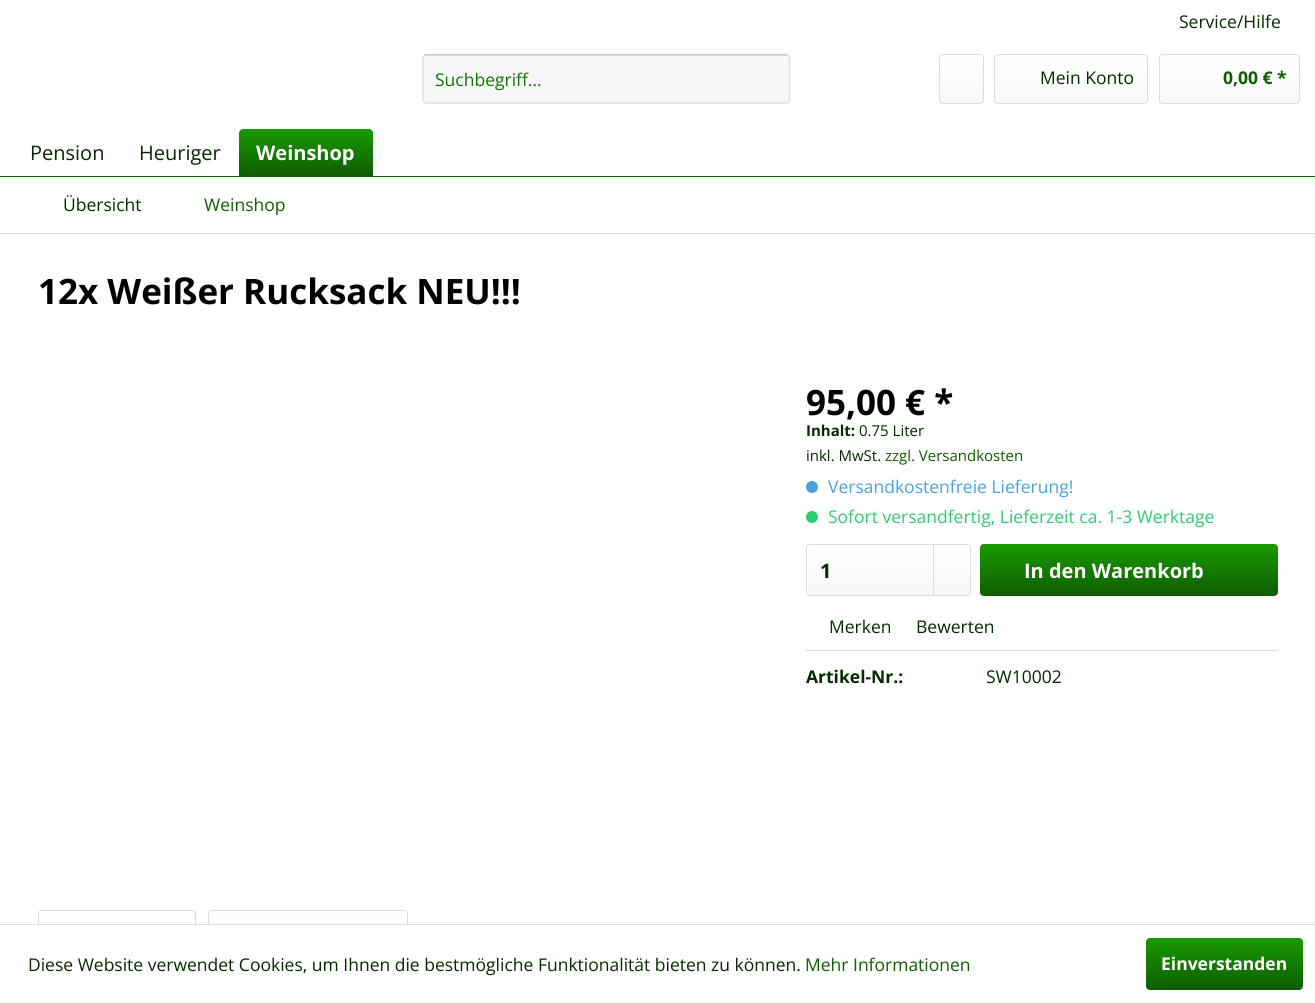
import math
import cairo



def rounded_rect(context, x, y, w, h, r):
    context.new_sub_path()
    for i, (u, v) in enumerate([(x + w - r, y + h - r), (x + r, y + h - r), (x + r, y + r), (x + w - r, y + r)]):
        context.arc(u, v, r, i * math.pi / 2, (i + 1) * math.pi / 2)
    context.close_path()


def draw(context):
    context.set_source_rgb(1, 1, 1)
    context.paint()
    context.set_source_rgb(248 / 255, 248 / 255, 250 / 255)
    rounded_rect(context, 423, 54, 367, 50, 4)
    context.fill()
    context.set_source_rgb(218 / 255, 218 / 255, 229 / 255)
    context.new_path()
    context.move_to(426, 56)
    context.line_to(786, 56)
    context.curve_to(788, 56, 789, 57, 789, 59)
    context.curve_to(789, 57, 789, 55, 786, 55)
    context.line_to(426, 55)
    context.curve_to(424, 55, 424, 57, 424, 59)
    context.curve_to(424, 57, 425, 56, 426, 56)
    context.close_path()
    context.fill()
    context.new_path()
    context.move_to(424, 55.5)
    context.line_to(426, 54.5)
    context.line_to(786, 54.5)
    context.line_to(788.5, 55.5)
    context.set_source_rgb(203 / 255, 203 / 255, 219 / 255)
    context.set_line_width(1.2)
    context.stroke()
    context.new_path()
    context.move_to(788.5, 55.5)
    context.line_to(789.5, 57.5)
    context.line_to(789.5, 100)
    context.line_to(788.5, 102)
    context.line_to(786, 103)
    context.line_to(426, 103)
    context.line_to(424, 102)
    context.line_to(423, 100)
    context.line_to(423, 57.5)
    context.line_to(424, 55.5)
    context.set_source_rgb(218 / 255, 218 / 255, 229 / 255)
    context.stroke()
    gradient = cairo.LinearGradient(961, 55, 961, 103)
    gradient.add_color_stop_rgba(0, 1, 1, 1, 1)
    gradient.add_color_stop_rgba(1, 248 / 255, 248 / 255, 250 / 255, 1)
    context.set_source(gradient)
    rounded_rect(context, 940, 55, 43, 48, 2.5)
    context.fill()
    rounded_rect(context, 939.5, 54.5, 44, 49, 3.5)
    context.set_source_rgb(218 / 255, 218 / 255, 229 / 255)
    context.set_line_width(1)
    context.stroke()
    gradient = cairo.LinearGradient(1071, 55, 1071, 103)
    gradient.add_color_stop_rgba(0, 1, 1, 1, 1)
    gradient.add_color_stop_rgba(1, 248 / 255, 248 / 255, 250 / 255, 1)
    context.set_source(gradient)
    rounded_rect(context, 995, 55, 151, 48, 2.5)
    context.fill()
    rounded_rect(context, 994.5, 54.5, 153, 49, 3.5)
    context.set_source_rgb(218 / 255, 218 / 255, 229 / 255)
    context.stroke()
    gradient = cairo.LinearGradient(1229, 55, 1229, 103)
    gradient.add_color_stop_rgba(0, 1, 1, 1, 1)
    gradient.add_color_stop_rgba(1, 248 / 255, 248 / 255, 250 / 255, 1)
    context.set_source(gradient)
    rounded_rect(context, 1160, 55, 139, 48, 2.5)
    context.fill()
    rounded_rect(context, 1159.5, 54.5, 140, 49, 3.5)
    context.set_source_rgb(218 / 255, 218 / 255, 229 / 255)
    context.stroke()
    context.set_source_rgb(15 / 255, 93 / 255, 0)
    context.rectangle(0, 176, 1315, 1)
    context.fill()
    gradient = cairo.LinearGradient(306, 129, 306, 176)
    gradient.add_color_stop_rgba(0, 25 / 255, 154 / 255, 0, 1)
    gradient.add_color_stop_rgba(1, 15 / 255, 93 / 255, 0, 1)
    context.set_source(gradient)
    context.new_path()
    context.move_to(243, 129)
    context.line_to(369, 129)
    context.curve_to(371, 129, 373, 131, 373, 133)
    context.line_to(373, 176)
    context.line_to(239, 176)
    context.line_to(239, 133)
    context.curve_to(239, 131, 241, 129, 243, 129)
    context.close_path()
    context.fill()
    context.set_source_rgb(218 / 255, 218 / 255, 229 / 255)
    context.rectangle(0, 233, 1315, 1)
    context.fill()
    context.set_source_rgb(74 / 255, 163 / 255, 223 / 255)
    context.arc(812, 487, 6, 0, 2 * math.pi)
    context.fill()
    context.set_source_rgb(46 / 255, 204 / 255, 113 / 255)
    context.arc(812, 517, 6, 0, 2 * math.pi)
    context.fill()
    gradient = cairo.LinearGradient(889, 545, 889, 595)
    gradient.add_color_stop_rgba(0, 1, 1, 1, 1)
    gradient.add_color_stop_rgba(1, 248 / 255, 248 / 255, 250 / 255, 1)
    context.set_source(gradient)
    rounded_rect(context, 808, 545, 162, 50, 2.5)
    context.fill()
    rounded_rect(context, 806.5, 544.5, 164, 51, 3.5)
    context.set_source_rgb(218 / 255, 218 / 255, 229 / 255)
    context.stroke()
    context.rectangle(933, 545, 1, 50)
    context.fill()
    gradient = cairo.LinearGradient(1129, 544, 1129, 596)
    gradient.add_color_stop_rgba(0, 25 / 255, 154 / 255, 0, 1)
    gradient.add_color_stop_rgba(1, 15 / 255, 93 / 255, 0, 1)
    context.set_source(gradient)
    rounded_rect(context, 980, 544, 298, 52, 4)
    context.fill()
    context.set_source_rgb(218 / 255, 218 / 255, 229 / 255)
    context.rectangle(806, 650, 472, 1)
    context.fill()
    context.new_path()
    context.move_to(41, 910)
    context.line_to(39, 911)
    context.line_to(39, 912)
    context.line_to(41, 911)
    context.line_to(193, 911)
    context.line_to(194, 912)
    context.line_to(195, 911)
    context.curve_to(194, 910, 193, 910, 192, 910)
    context.close_path()
    context.fill()
    context.new_path()
    context.move_to(195, 911)
    context.curve_to(196, 912, 196, 913, 196, 914)
    context.line_to(196, 967)
    context.line_to(195, 966)
    context.curve_to(195, 960, 196, 914, 194, 912)
    context.close_path()
    context.fill()
    context.new_path()
    context.move_to(39, 911)
    context.line_to(38, 914)
    context.line_to(38, 967)
    context.line_to(39, 966)
    context.line_to(39, 914)
    context.line_to(39, 912)
    context.close_path()
    context.fill()
    gradient = cairo.LinearGradient(308, 911, 308, 966)
    gradient.add_color_stop_rgba(0, 1, 1, 1, 1)
    gradient.add_color_stop_rgba(1, 248 / 255, 248 / 255, 250 / 255, 1)
    context.set_source(gradient)
    context.new_path()
    context.move_to(211.5, 911)
    context.line_to(403.5, 911)
    context.curve_to(405, 911, 406, 912, 406, 913.5)
    context.line_to(406, 966)
    context.line_to(209, 966)
    context.line_to(209, 913.5)
    context.curve_to(209, 912, 210, 911, 211.5, 911)
    context.close_path()
    context.fill()
    context.new_path()
    context.move_to(212, 910.5)
    context.line_to(404, 910.5)
    context.curve_to(406, 910.5, 407.5, 912, 407.5, 914)
    context.line_to(407.5, 967.5)
    context.line_to(208.5, 967.5)
    context.line_to(208.5, 914)
    context.curve_to(208.5, 912, 210, 910.5, 212, 910.5)
    context.close_path()
    context.set_source_rgb(218 / 255, 218 / 255, 229 / 255)
    context.stroke()
    context.set_source_rgb(1, 1, 1)
    context.rectangle(38, 925, 370, 43)
    context.fill()
    context.set_source_rgb(218 / 255, 218 / 255, 229 / 255)
    context.rectangle(0, 924, 1315, 1)
    context.fill()
    gradient = cairo.LinearGradient(1224, 938, 1224, 990)
    gradient.add_color_stop_rgba(0, 25 / 255, 154 / 255, 0, 1)
    gradient.add_color_stop_rgba(1, 15 / 255, 93 / 255, 0, 1)
    context.set_source(gradient)
    rounded_rect(context, 1146, 938, 157, 52, 4)
    context.fill()
    context.select_font_face("Open Sans")
    context.set_font_size(17.5)
    context.set_source_rgb(5 / 255, 41 / 255, 0)
    context.move_to(1179, 28)
    context.show_text("Service/Hilfe")
    context.set_source_rgb(14 / 255, 118 / 255, 0)
    context.move_to(435, 86)
    context.show_text("Suchbegriff...")
    context.set_source_rgb(5 / 255, 41 / 255, 0)
    context.move_to(1040, 84)
    context.show_text("Mein Konto")
    context.select_font_face("Open Sans", cairo.FontSlant.NORMAL, cairo.FontWeight.BOLD)
    context.set_source_rgb(15 / 255, 93 / 255, 0)
    context.move_to(1223, 84)
    context.show_text("0,00 € *")
    context.select_font_face("Open Sans")
    context.set_font_size(20)
    context.set_source_rgb(5 / 255, 41 / 255, 0)
    context.move_to(30, 160)
    context.show_text("Pension")
    context.move_to(139, 160)
    context.show_text("Heuriger")
    context.select_font_face("Open Sans", cairo.FontSlant.NORMAL, cairo.FontWeight.BOLD)
    context.set_source_rgb(1, 1, 1)
    context.move_to(256, 160)
    context.show_text("Weinshop")
    context.select_font_face("Open Sans")
    context.set_font_size(17.5)
    context.set_source_rgb(5 / 255, 41 / 255, 0)
    context.move_to(63, 211)
    context.show_text("Übersicht")
    context.set_source_rgb(15 / 255, 93 / 255, 0)
    context.move_to(204, 211)
    context.show_text("Weinshop")
    context.select_font_face("Open Sans", cairo.FontSlant.NORMAL, cairo.FontWeight.BOLD)
    context.set_font_size(35)
    context.set_source_rgb(0, 0, 0)
    context.move_to(38, 304)
    context.show_text("12x Weißer Rucksack NEU!!!")
    context.move_to(806, 415)
    context.show_text("95,00 € *")
    context.set_font_size(15)
    context.set_source_rgb(5 / 255, 41 / 255, 0)
    context.move_to(806, 436)
    context.show_text("Inhalt:")
    context.select_font_face("Open Sans")
    context.move_to(859, 436)
    context.show_text("0.75 Liter")
    context.move_to(806, 461)
    context.show_text("inkl. MwSt.")
    context.set_source_rgb(15 / 255, 93 / 255, 0)
    context.move_to(885, 461)
    context.show_text("zzgl. Versandkosten")
    context.set_font_size(17.5)
    context.set_source_rgb(74 / 255, 163 / 255, 223 / 255)
    context.move_to(828, 493)
    context.show_text("Versandkostenfreie Lieferung!")
    context.set_source_rgb(46 / 255, 204 / 255, 113 / 255)
    context.move_to(828, 523)
    context.show_text("Sofort versandfertig, Lieferzeit ca. 1-3 Werktage")
    context.select_font_face("Open Sans", cairo.FontSlant.NORMAL, cairo.FontWeight.BOLD)
    context.set_font_size(20)
    context.set_source_rgb(5 / 255, 41 / 255, 0)
    context.move_to(820, 578)
    context.show_text("1")
    context.set_source_rgb(1, 1, 1)
    context.move_to(1024, 578)
    context.show_text("In den Warenkorb")
    context.select_font_face("Open Sans")
    context.set_font_size(17.5)
    context.set_source_rgb(5 / 255, 41 / 255, 0)
    context.move_to(829, 633)
    context.show_text("Merken")
    context.move_to(916, 633)
    context.show_text("Bewerten")
    context.select_font_face("Open Sans", cairo.FontSlant.NORMAL, cairo.FontWeight.BOLD)
    context.move_to(806, 683)
    context.show_text("Artikel-Nr.:")
    context.select_font_face("Open Sans")
    context.move_to(986, 683)
    context.show_text("SW10002")
    context.move_to(28, 971)
    context.show_text("Diese Website verwendet Cookies, um Ihnen die bestmögliche Funktionalität bieten zu können.")
    context.set_source_rgb(15 / 255, 93 / 255, 0)
    context.move_to(805, 971)
    context.show_text("Mehr Informationen")
    context.select_font_face("Open Sans", cairo.FontSlant.NORMAL, cairo.FontWeight.BOLD)
    context.set_source_rgb(1, 1, 1)
    context.move_to(1161, 970)
    context.show_text("Einverstanden")


surface = cairo.ImageSurface(cairo.Format.RGB24, 1315, 1003)
context = cairo.Context(surface)
options = cairo.FontOptions()
options.set_hint_metrics(cairo.HintMetrics.OFF)
options.set_hint_style(cairo.HintStyle.NONE)
context.set_font_options(options)
context.set_miter_limit(4)
draw(context)
surface.write_to_png("out.png")
